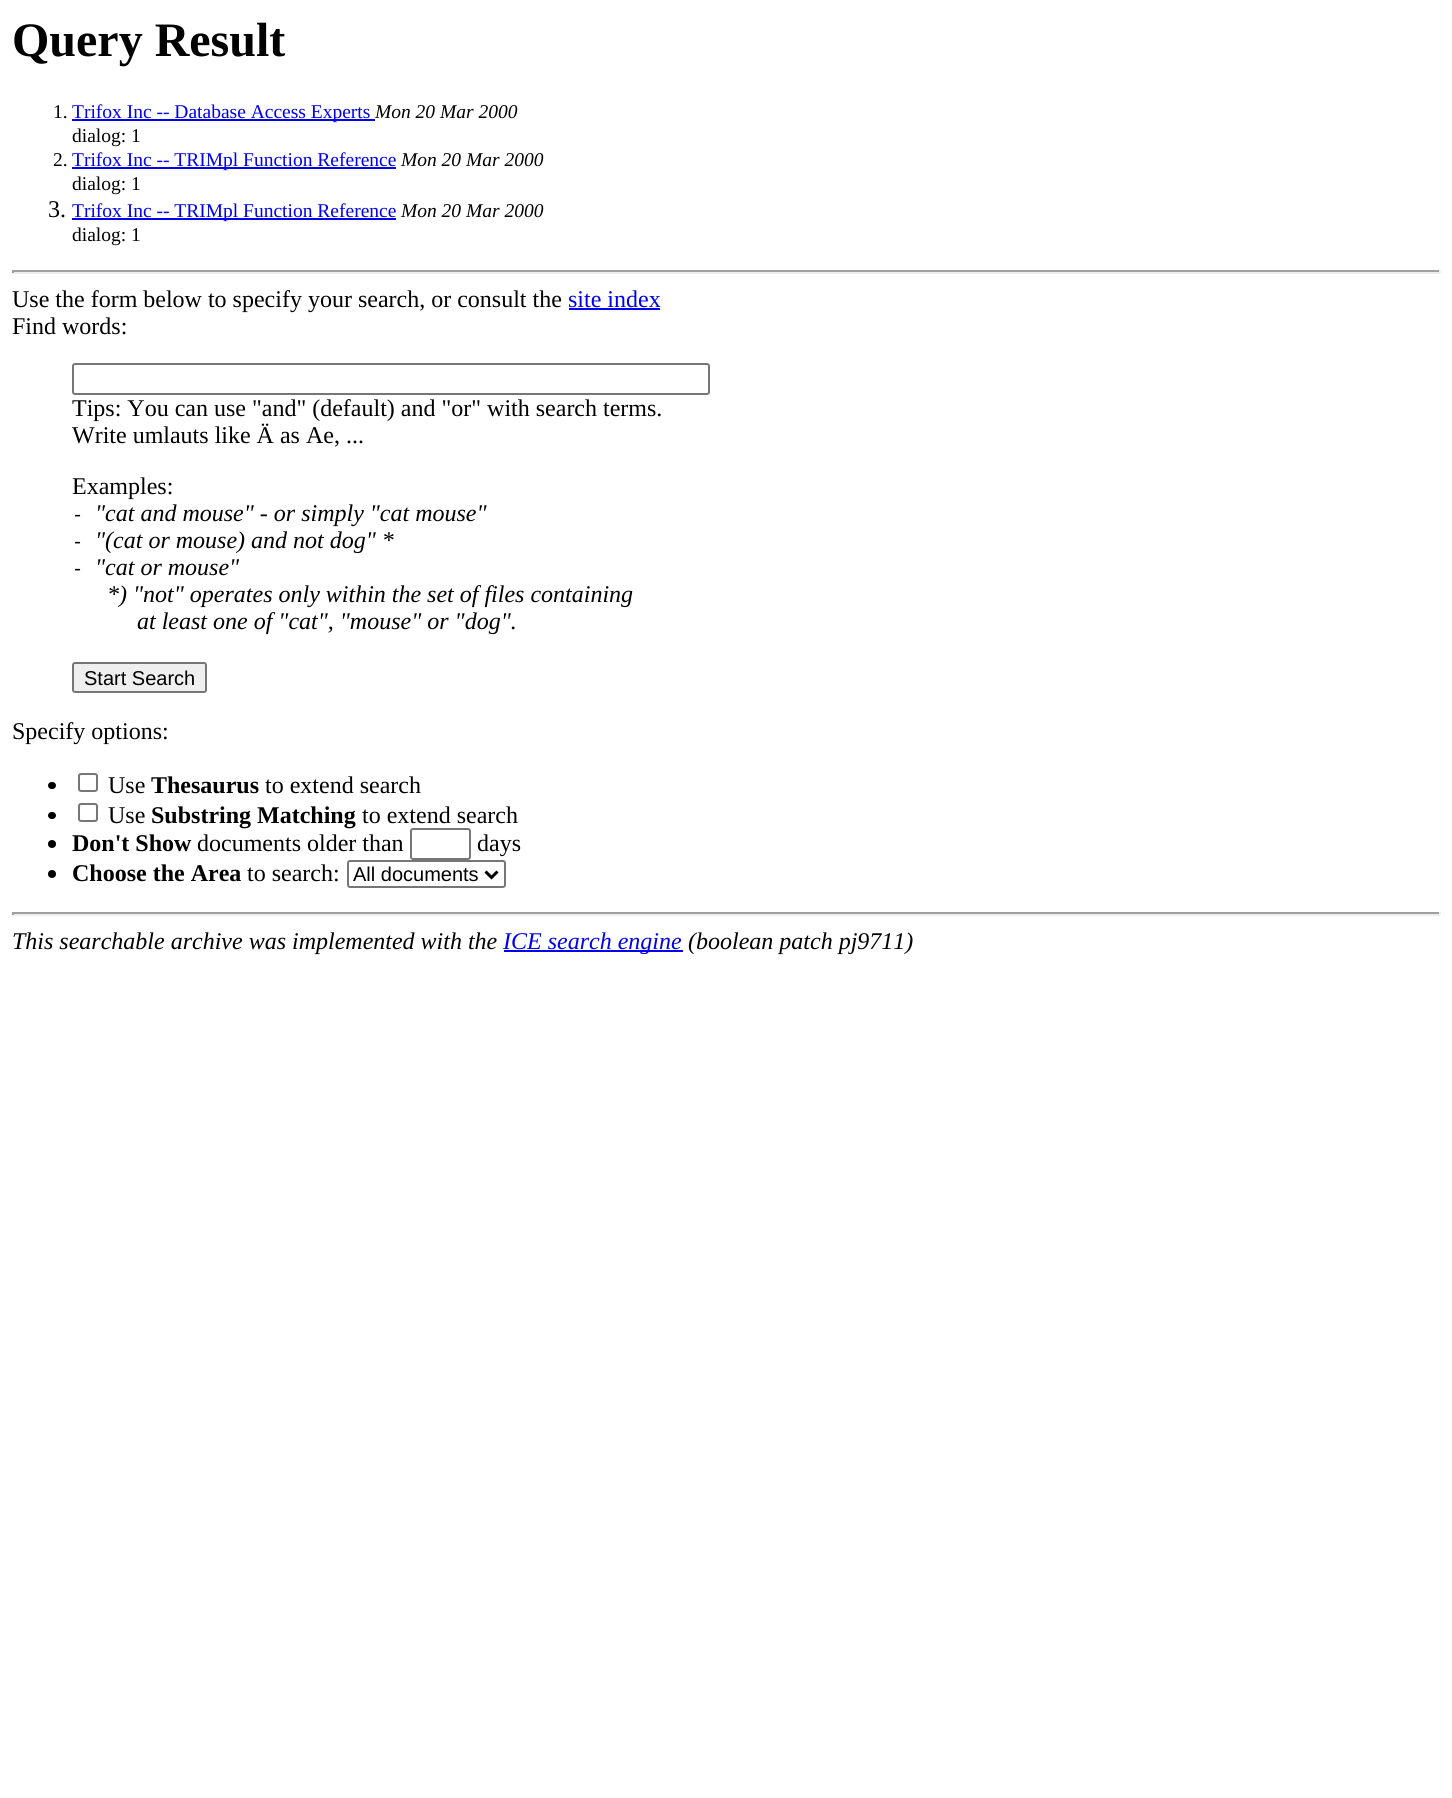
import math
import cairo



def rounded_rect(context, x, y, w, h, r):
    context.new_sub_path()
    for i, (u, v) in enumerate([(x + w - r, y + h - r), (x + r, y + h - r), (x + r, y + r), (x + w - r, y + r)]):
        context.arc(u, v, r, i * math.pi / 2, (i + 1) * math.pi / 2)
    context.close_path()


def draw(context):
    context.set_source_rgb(1, 1, 1)
    context.paint()
    context.set_source_rgb(0, 0, 238 / 255)
    context.rectangle(72, 119, 303, 2)
    context.fill()
    context.rectangle(72, 167, 324, 2)
    context.fill()
    context.rectangle(72, 218, 324, 2)
    context.fill()
    context.set_source_rgb(159 / 255, 159 / 255, 159 / 255)
    context.rectangle(12, 270, 1428, 2)
    context.fill()
    context.set_source_rgb(238 / 255, 238 / 255, 238 / 255)
    context.rectangle(1439, 270, 2, 3)
    context.fill()
    context.rectangle(12, 272, 1428, 2)
    context.fill()
    context.set_source_rgb(159 / 255, 159 / 255, 159 / 255)
    context.rectangle(12, 270, 2, 3)
    context.fill()
    context.set_source_rgb(0, 0, 238 / 255)
    context.rectangle(569, 308, 91, 2)
    context.fill()
    rounded_rect(context, 73, 364, 636, 30, 2)
    context.set_source_rgb(118 / 255, 118 / 255, 118 / 255)
    context.stroke()
    context.set_source_rgb(239 / 255, 239 / 255, 239 / 255)
    rounded_rect(context, 73, 663, 133, 29, 2)
    context.fill_preserve()
    context.set_source_rgb(118 / 255, 118 / 255, 118 / 255)
    context.stroke()
    context.set_source_rgb(0, 0, 0)
    rounded_rect(context, 48, 782, 8, 7, 3.5)
    context.fill()
    rounded_rect(context, 79, 774, 18, 17, 2)
    context.set_source_rgb(118 / 255, 118 / 255, 118 / 255)
    context.stroke()
    context.set_source_rgb(0, 0, 0)
    rounded_rect(context, 48, 812, 8, 7, 3.5)
    context.fill()
    rounded_rect(context, 79, 804, 18, 17, 2)
    context.set_source_rgb(118 / 255, 118 / 255, 118 / 255)
    context.stroke()
    context.set_source_rgb(0, 0, 0)
    context.arc(52, 844, 4, 0, 2 * math.pi)
    context.fill()
    rounded_rect(context, 411, 829, 59, 30, 2)
    context.set_source_rgb(118 / 255, 118 / 255, 118 / 255)
    context.stroke()
    context.set_source_rgb(0, 0, 0)
    context.arc(52, 874, 4, 0, 2 * math.pi)
    context.fill()
    rounded_rect(context, 348, 861, 157, 26, 2)
    context.set_source_rgb(118 / 255, 118 / 255, 118 / 255)
    context.stroke()
    context.new_path()
    context.move_to(485.5, 871.5)
    context.line_to(491.5, 877.5)
    context.line_to(497.5, 871.5)
    context.set_source_rgb(0, 0, 0)
    context.set_line_width(3)
    context.stroke()
    context.set_source_rgb(159 / 255, 159 / 255, 159 / 255)
    context.rectangle(12, 912, 1428, 2)
    context.fill()
    context.set_source_rgb(238 / 255, 238 / 255, 238 / 255)
    context.rectangle(1439, 912, 2, 3)
    context.fill()
    context.rectangle(12, 914, 1428, 2)
    context.fill()
    context.set_source_rgb(159 / 255, 159 / 255, 159 / 255)
    context.rectangle(12, 912, 2, 3)
    context.fill()
    context.set_source_rgb(0, 0, 238 / 255)
    context.rectangle(504, 950, 179, 2)
    context.fill()
    context.select_font_face("Liberation Serif", cairo.FontSlant.NORMAL, cairo.FontWeight.BOLD)
    context.set_font_size(48)
    context.set_source_rgb(0, 0, 0)
    context.move_to(12, 56)
    context.show_text("Query Result")
    context.select_font_face("Liberation Serif")
    context.set_font_size(19.5)
    context.move_to(53, 118)
    context.show_text("1.")
    context.set_source_rgb(0, 0, 238 / 255)
    context.move_to(72, 118)
    context.show_text("Trifox Inc -- Database Access Experts")
    context.select_font_face("Liberation Serif", cairo.FontSlant.ITALIC)
    context.set_source_rgb(0, 0, 0)
    context.move_to(375, 118)
    context.show_text("Mon 20 Mar 2000")
    context.select_font_face("Liberation Serif")
    context.move_to(72, 142)
    context.show_text("dialog: 1")
    context.move_to(53, 166)
    context.show_text("2.")
    context.set_source_rgb(0, 0, 238 / 255)
    context.move_to(72, 166)
    context.show_text("Trifox Inc -- TRIMpl Function Reference")
    context.select_font_face("Liberation Serif", cairo.FontSlant.ITALIC)
    context.set_source_rgb(0, 0, 0)
    context.move_to(401, 166)
    context.show_text("Mon 20 Mar 2000")
    context.select_font_face("Liberation Serif")
    context.move_to(72, 190)
    context.show_text("dialog: 1")
    context.set_font_size(24)
    context.move_to(48, 217)
    context.show_text("3.")
    context.set_font_size(19.5)
    context.set_source_rgb(0, 0, 238 / 255)
    context.move_to(72, 217)
    context.show_text("Trifox Inc -- TRIMpl Function Reference")
    context.select_font_face("Liberation Serif", cairo.FontSlant.ITALIC)
    context.set_source_rgb(0, 0, 0)
    context.move_to(401, 217)
    context.show_text("Mon 20 Mar 2000")
    context.select_font_face("Liberation Serif")
    context.move_to(72, 241)
    context.show_text("dialog: 1")
    context.set_font_size(24)
    context.move_to(12, 307)
    context.show_text("Use the form below to specify your search, or consult the")
    context.set_source_rgb(0, 0, 238 / 255)
    context.move_to(568, 307)
    context.show_text("site index")
    context.set_source_rgb(0, 0, 0)
    context.move_to(12, 334)
    context.show_text("Find words:")
    context.move_to(72, 416)
    context.show_text("Tips: You can use \"and\" (default) and \"or\" with search terms.")
    context.move_to(72, 443)
    context.show_text("Write umlauts like Ä as Ae, ...")
    context.move_to(72, 494)
    context.show_text("Examples:")
    context.select_font_face("DejaVu Sans Mono", cairo.FontSlant.ITALIC)
    context.set_font_size(19.5)
    context.move_to(72, 521)
    context.show_text("-")
    context.select_font_face("Liberation Serif", cairo.FontSlant.ITALIC)
    context.set_font_size(24)
    context.move_to(95, 521)
    context.show_text("\"cat and mouse\" - or simply \"cat mouse\"")
    context.select_font_face("DejaVu Sans Mono", cairo.FontSlant.ITALIC)
    context.set_font_size(19.5)
    context.move_to(72, 548)
    context.show_text("-")
    context.select_font_face("Liberation Serif", cairo.FontSlant.ITALIC)
    context.set_font_size(24)
    context.move_to(95, 548)
    context.show_text("\"(cat or mouse) and not dog\" *")
    context.select_font_face("DejaVu Sans Mono", cairo.FontSlant.ITALIC)
    context.set_font_size(19.5)
    context.move_to(72, 575)
    context.show_text("-")
    context.select_font_face("Liberation Serif", cairo.FontSlant.ITALIC)
    context.set_font_size(24)
    context.move_to(95, 575)
    context.show_text("\"cat or mouse\"")
    context.move_to(107, 602)
    context.show_text("*) \"not\" operates only within the set of files containing")
    context.move_to(137, 629)
    context.show_text("at least one of \"cat\", \"mouse\" or \"dog\".")
    context.select_font_face("Liberation Sans")
    context.set_font_size(20)
    context.move_to(84, 685)
    context.show_text("Start Search")
    context.select_font_face("Liberation Serif")
    context.set_font_size(24)
    context.move_to(12, 739)
    context.show_text("Specify options:")
    context.move_to(108, 793)
    context.show_text("Use")
    context.select_font_face("Liberation Serif", cairo.FontSlant.NORMAL, cairo.FontWeight.BOLD)
    context.move_to(151, 793)
    context.show_text("Thesaurus")
    context.select_font_face("Liberation Serif")
    context.move_to(265, 793)
    context.show_text("to extend search")
    context.move_to(108, 823)
    context.show_text("Use")
    context.select_font_face("Liberation Serif", cairo.FontSlant.NORMAL, cairo.FontWeight.BOLD)
    context.move_to(151, 823)
    context.show_text("Substring Matching")
    context.select_font_face("Liberation Serif")
    context.move_to(362, 823)
    context.show_text("to extend search")
    context.select_font_face("Liberation Serif", cairo.FontSlant.NORMAL, cairo.FontWeight.BOLD)
    context.move_to(72, 851)
    context.show_text("Don't Show")
    context.select_font_face("Liberation Serif")
    context.move_to(197, 851)
    context.show_text("documents older than")
    context.move_to(477, 851)
    context.show_text("days")
    context.select_font_face("Liberation Serif", cairo.FontSlant.NORMAL, cairo.FontWeight.BOLD)
    context.move_to(72, 881)
    context.show_text("Choose the Area")
    context.select_font_face("Liberation Serif")
    context.move_to(247, 881)
    context.show_text("to search:")
    context.select_font_face("Liberation Sans")
    context.set_font_size(20)
    context.move_to(353, 881)
    context.show_text("All documents")
    context.select_font_face("Liberation Serif", cairo.FontSlant.ITALIC)
    context.set_font_size(24)
    context.move_to(12, 949)
    context.show_text("This searchable archive was implemented with the")
    context.set_source_rgb(0, 0, 238 / 255)
    context.move_to(503, 949)
    context.show_text("ICE search engine")
    context.set_source_rgb(0, 0, 0)
    context.move_to(688, 949)
    context.show_text("(boolean patch pj9711)")


surface = cairo.ImageSurface(cairo.Format.RGB24, 1452, 1798)
context = cairo.Context(surface)
options = cairo.FontOptions()
options.set_hint_metrics(cairo.HintMetrics.OFF)
options.set_hint_style(cairo.HintStyle.NONE)
context.set_font_options(options)
context.set_miter_limit(4)
draw(context)
surface.write_to_png("out.png")
